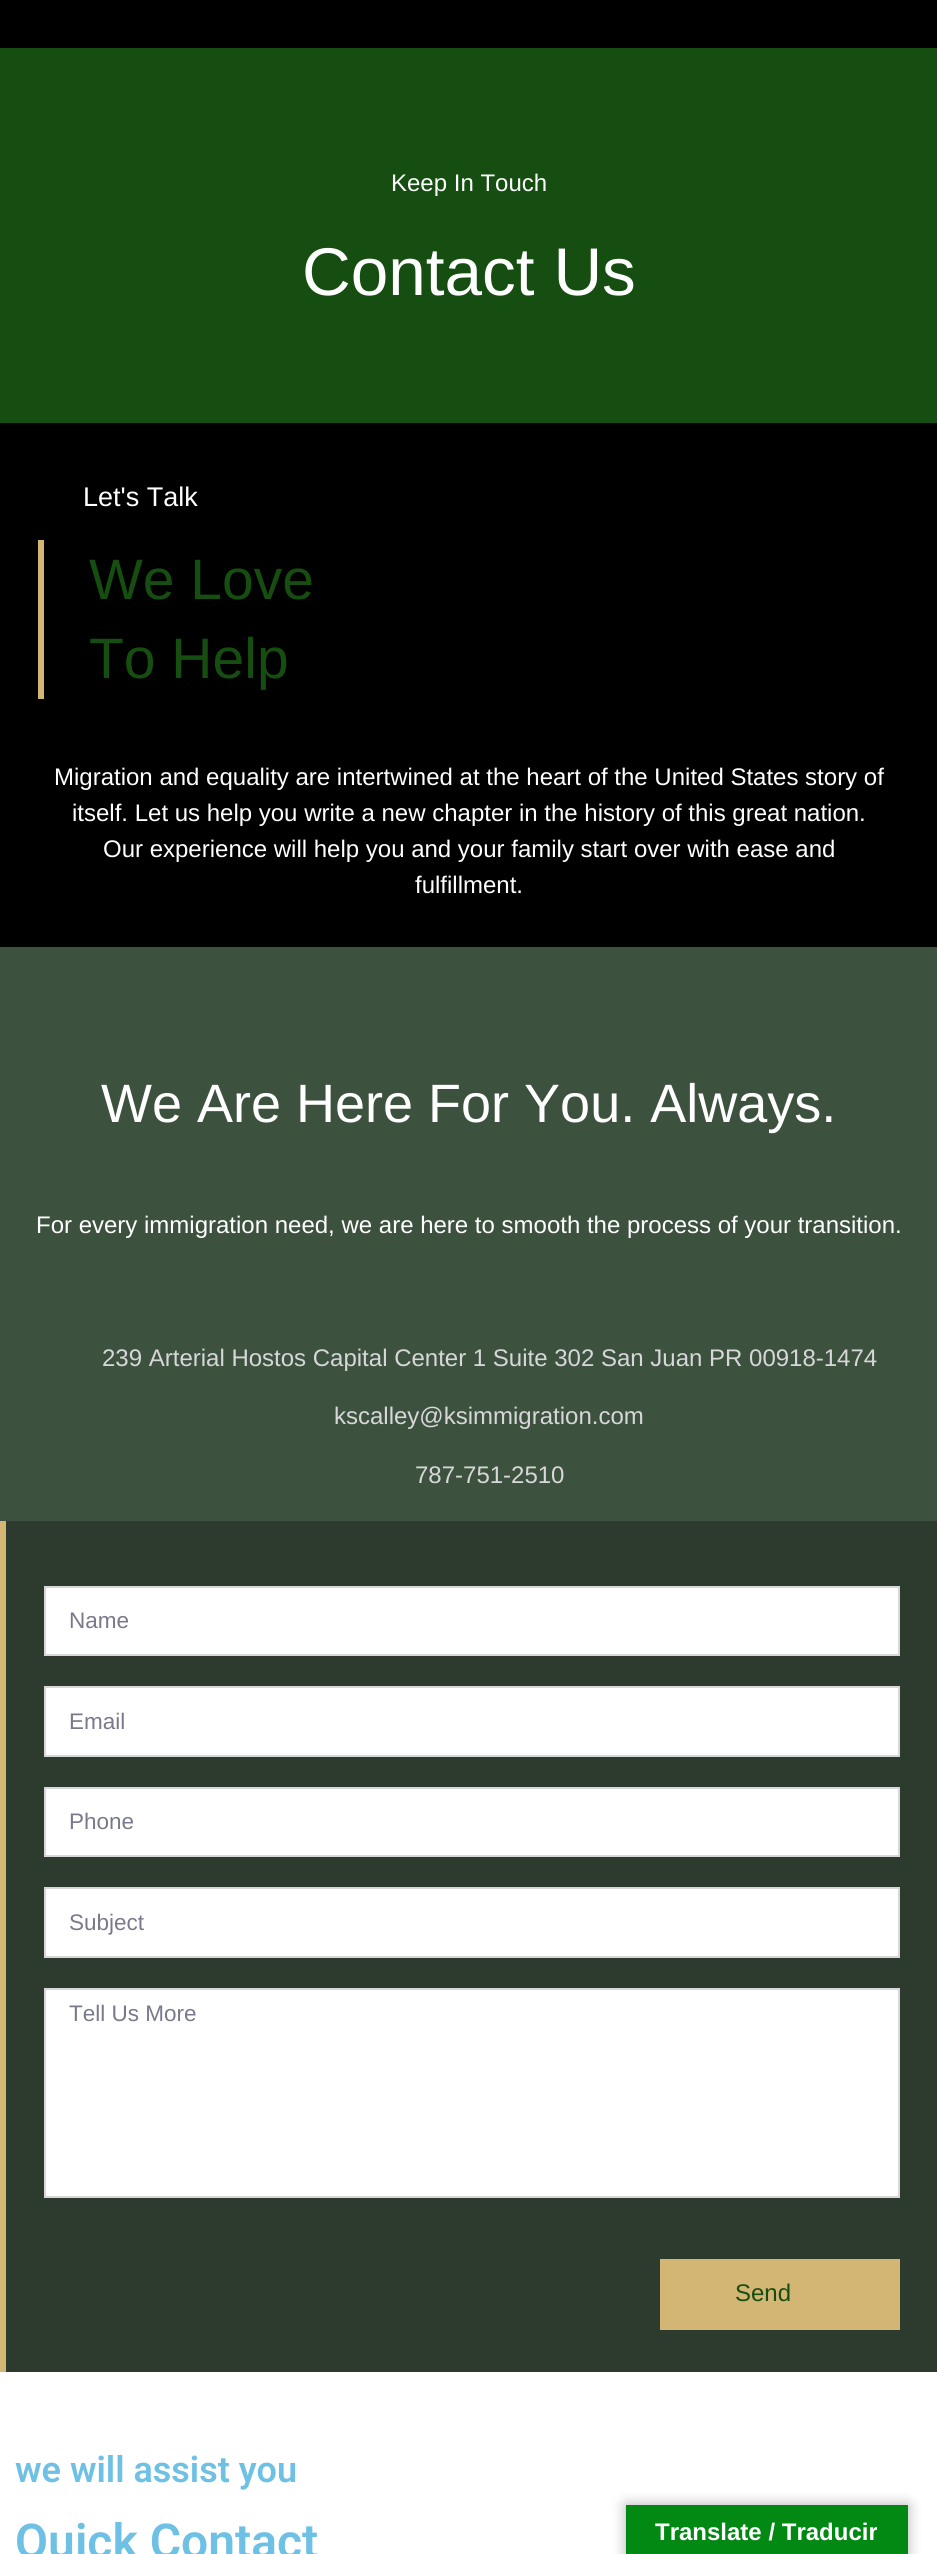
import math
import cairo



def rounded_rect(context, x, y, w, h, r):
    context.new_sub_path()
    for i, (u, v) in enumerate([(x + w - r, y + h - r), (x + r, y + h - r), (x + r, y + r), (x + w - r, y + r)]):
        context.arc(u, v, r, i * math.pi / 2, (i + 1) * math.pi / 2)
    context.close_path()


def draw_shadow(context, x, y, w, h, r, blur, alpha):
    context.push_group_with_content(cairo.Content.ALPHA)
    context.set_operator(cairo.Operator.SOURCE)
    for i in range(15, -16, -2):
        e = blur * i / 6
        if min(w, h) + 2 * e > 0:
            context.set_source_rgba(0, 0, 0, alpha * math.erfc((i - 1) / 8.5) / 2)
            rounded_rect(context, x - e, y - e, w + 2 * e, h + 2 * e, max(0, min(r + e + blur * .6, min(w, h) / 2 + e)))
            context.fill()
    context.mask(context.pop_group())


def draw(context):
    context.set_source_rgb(1, 1, 1)
    context.paint()
    context.set_source_rgb(0, 0, 0)
    context.rectangle(0, 0, 937, 48)
    context.fill()
    context.set_source_rgb(21 / 255, 78 / 255, 16 / 255)
    context.rectangle(0, 48, 937, 375)
    context.fill()
    context.set_source_rgb(0, 0, 0)
    context.rectangle(0, 423, 937, 524)
    context.fill()
    context.set_source_rgb(211 / 255, 181 / 255, 116 / 255)
    context.rectangle(38, 540, 6, 159)
    context.fill()
    context.set_source_rgb(61 / 255, 82 / 255, 62 / 255)
    context.rectangle(0, 947, 937, 574)
    context.fill()
    context.set_source_rgb(45 / 255, 59 / 255, 47 / 255)
    context.rectangle(6, 1521, 931, 851)
    context.fill()
    context.set_source_rgb(211 / 255, 181 / 255, 116 / 255)
    context.rectangle(0, 1521, 6, 851)
    context.fill()
    context.set_source_rgb(1, 1, 1)
    context.rectangle(45, 1587, 854, 68)
    context.fill_preserve()
    context.set_source_rgb(215 / 255, 215 / 255, 217 / 255)
    context.stroke()
    context.set_source_rgb(1, 1, 1)
    context.rectangle(45, 1687, 854, 69)
    context.fill_preserve()
    context.set_source_rgb(215 / 255, 215 / 255, 217 / 255)
    context.stroke()
    context.set_source_rgb(1, 1, 1)
    context.rectangle(45, 1788, 854, 68)
    context.fill_preserve()
    context.set_source_rgb(215 / 255, 215 / 255, 217 / 255)
    context.stroke()
    context.set_source_rgb(1, 1, 1)
    context.rectangle(45, 1888, 854, 69)
    context.fill_preserve()
    context.set_source_rgb(215 / 255, 215 / 255, 217 / 255)
    context.stroke()
    context.set_source_rgb(1, 1, 1)
    context.rectangle(45, 1989, 854, 208)
    context.fill_preserve()
    context.set_source_rgb(215 / 255, 215 / 255, 217 / 255)
    context.stroke()
    context.set_source_rgb(211 / 255, 181 / 255, 116 / 255)
    context.rectangle(660, 2259, 240, 71)
    context.fill()
    context.set_source_rgb(0, 0, 0)
    draw_shadow(context, 626, 2505, 282, 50, 0, 7, 0.3)
    context.set_source_rgb(1 / 255, 137 / 255, 19 / 255)
    context.rectangle(626, 2505, 282, 49)
    context.fill()
    context.select_font_face("Liberation Sans")
    context.set_font_size(24)
    context.set_source_rgb(1, 1, 1)
    context.move_to(391, 191)
    context.show_text("Keep In Touch")
    context.set_font_size(67.5)
    context.move_to(302, 295)
    context.show_text("Contact Us")
    context.set_font_size(27)
    context.move_to(83, 506)
    context.show_text("Let's Talk")
    context.set_font_size(57)
    context.set_source_rgb(21 / 255, 78 / 255, 16 / 255)
    context.move_to(89, 599)
    context.show_text("We Love")
    context.move_to(89, 678)
    context.show_text("To Help")
    context.set_font_size(24)
    context.set_source_rgb(1, 1, 1)
    context.move_to(54, 785)
    context.show_text("Migration and equality are intertwined at the heart of the United States story of")
    context.move_to(72, 821)
    context.show_text("itself. Let us help you write a new chapter in the history of this great nation.")
    context.move_to(103, 857)
    context.show_text("Our experience will help you and your family start over with ease and")
    context.move_to(415, 893)
    context.show_text("fulfillment.")
    context.set_font_size(54)
    context.move_to(101, 1122)
    context.show_text("We Are Here For You. Always.")
    context.set_font_size(24)
    context.move_to(36, 1233)
    context.show_text("For every immigration need, we are here to smooth the process of your transition.")
    context.set_source_rgb(215 / 255, 215 / 255, 217 / 255)
    context.move_to(102, 1366)
    context.show_text("239 Arterial Hostos Capital Center 1 Suite 302 San Juan PR 00918-1474")
    context.move_to(334, 1424)
    context.show_text("kscalley@ksimmigration.com")
    context.move_to(415, 1483)
    context.show_text("787-751-2510")
    context.set_font_size(22.5)
    context.set_source_rgb(122 / 255, 121 / 255, 140 / 255)
    context.move_to(69, 1628)
    context.show_text("Name")
    context.move_to(69, 1729)
    context.show_text("Email")
    context.move_to(69, 1829)
    context.show_text("Phone")
    context.move_to(69, 1930)
    context.show_text("Subject")
    context.move_to(69, 2021)
    context.show_text("Tell Us More")
    context.set_font_size(24)
    context.set_source_rgb(21 / 255, 78 / 255, 16 / 255)
    context.move_to(735, 2301)
    context.show_text("Send")
    context.select_font_face("Roboto SemiBold")
    context.set_font_size(36)
    context.set_source_rgb(110 / 255, 193 / 255, 228 / 255)
    context.move_to(15, 2482)
    context.show_text("we will assist you")
    context.set_font_size(48)
    context.move_to(15, 2558)
    context.show_text("Quick Contact")
    context.select_font_face("Liberation Sans", cairo.FontSlant.NORMAL, cairo.FontWeight.BOLD)
    context.set_font_size(24)
    context.set_source_rgb(1, 1, 1)
    context.move_to(655, 2540)
    context.show_text("Translate / Traducir")


surface = cairo.ImageSurface(cairo.Format.RGB24, 937, 2554)
context = cairo.Context(surface)
options = cairo.FontOptions()
options.set_hint_metrics(cairo.HintMetrics.OFF)
options.set_hint_style(cairo.HintStyle.NONE)
context.set_font_options(options)
context.set_miter_limit(4)
draw(context)
surface.write_to_png("out.png")
